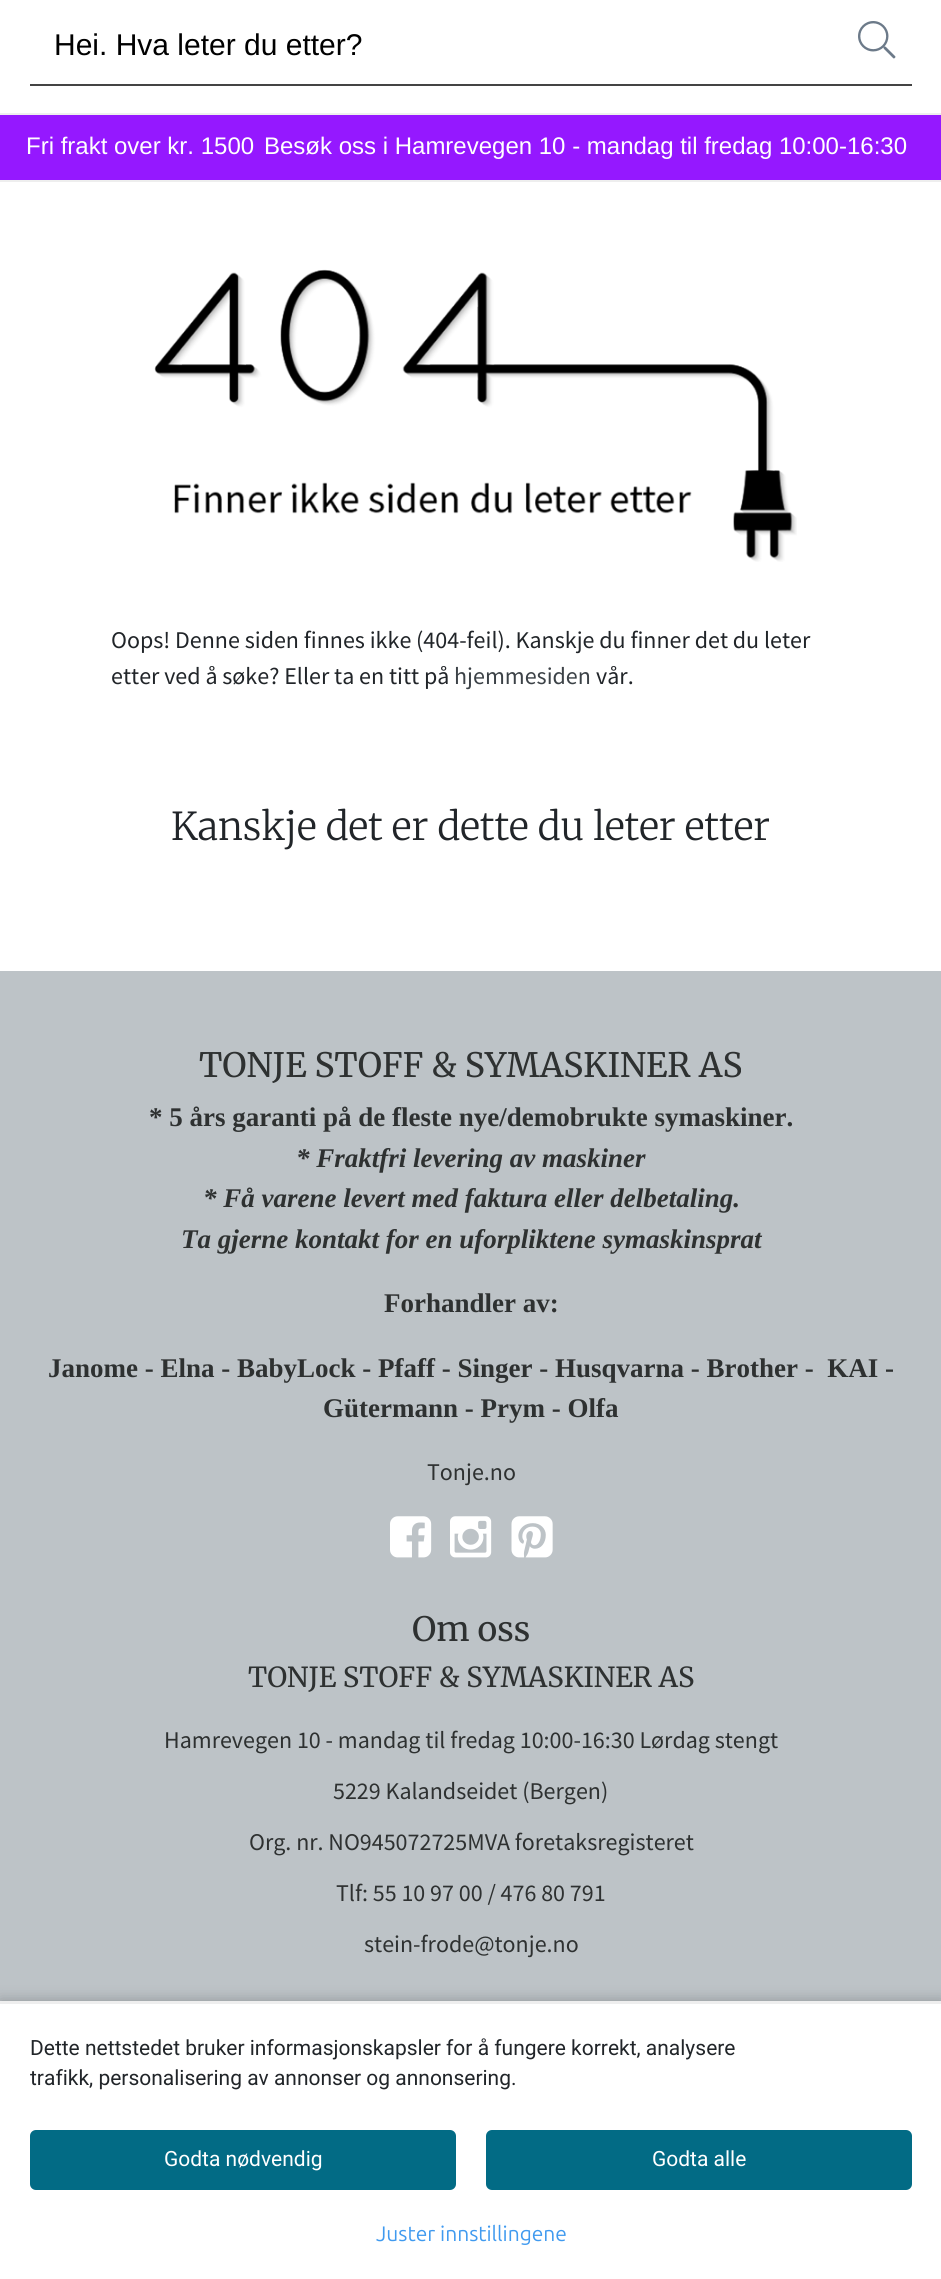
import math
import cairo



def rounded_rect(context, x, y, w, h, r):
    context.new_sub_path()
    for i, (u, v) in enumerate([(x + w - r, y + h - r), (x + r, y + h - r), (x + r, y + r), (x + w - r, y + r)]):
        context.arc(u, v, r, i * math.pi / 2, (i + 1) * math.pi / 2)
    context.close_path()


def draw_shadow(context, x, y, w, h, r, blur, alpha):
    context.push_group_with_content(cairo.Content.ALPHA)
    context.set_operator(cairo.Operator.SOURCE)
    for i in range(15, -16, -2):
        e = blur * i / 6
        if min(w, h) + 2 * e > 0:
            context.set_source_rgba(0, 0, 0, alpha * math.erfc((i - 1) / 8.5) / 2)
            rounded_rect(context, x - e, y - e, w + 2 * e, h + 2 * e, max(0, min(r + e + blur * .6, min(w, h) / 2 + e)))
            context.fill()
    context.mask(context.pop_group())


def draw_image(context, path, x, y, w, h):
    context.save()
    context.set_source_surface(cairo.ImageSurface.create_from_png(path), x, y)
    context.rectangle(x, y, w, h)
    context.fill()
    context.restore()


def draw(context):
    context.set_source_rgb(1, 1, 1)
    context.paint()
    context.set_source_rgb(68 / 255, 68 / 255, 68 / 255)
    context.rectangle(30, 84, 882, 2)
    context.fill()
    draw_image(context, "images/1.png", 858, 21, 38, 38)
    context.set_source_rgb(149 / 255, 24 / 255, 1)
    context.rectangle(0, 115, 941, 65)
    context.fill()
    context.set_source_rgb(238 / 255, 238 / 255, 238 / 255)
    context.rectangle(0, 113, 941, 2)
    context.fill()
    context.rectangle(0, 180, 941, 2)
    context.fill()
    draw_image(context, "images/2.png", 154, 269, 643, 293)
    context.set_source_rgb(189 / 255, 195 / 255, 199 / 255)
    context.rectangle(0, 971, 941, 1030)
    context.fill()
    draw_image(context, "images/3.png", 390, 1516, 42, 42)
    draw_image(context, "images/4.png", 450, 1516, 42, 42)
    draw_image(context, "images/5.png", 511, 1516, 42, 42)
    context.set_source_rgb(0, 0, 0)
    draw_shadow(context, 0, 2001, 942, 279, 0, 7.5, 0.25)
    context.set_source_rgb(1, 1, 1)
    context.rectangle(0, 2004, 941, 275)
    context.fill()
    context.set_source_rgb(238 / 255, 238 / 255, 238 / 255)
    context.rectangle(0, 2001, 941, 3)
    context.fill()
    context.set_source_rgb(2 / 255, 107 / 255, 133 / 255)
    rounded_rect(context, 30, 2130, 426, 60, 6)
    context.fill()
    rounded_rect(context, 486, 2130, 426, 60, 6)
    context.fill()
    context.select_font_face("Liberation Sans")
    context.set_font_size(30)
    context.set_source_rgb(0, 0, 0)
    context.move_to(54, 55)
    context.show_text("Hei. Hva leter du etter?")
    context.set_font_size(24)
    context.set_source_rgb(1, 1, 1)
    context.move_to(26, 154)
    context.show_text("Fri frakt over kr. 1500")
    context.move_to(264, 154)
    context.show_text("Besøk oss i Hamrevegen 10 - mandag til fredag 10:00-16:30")
    context.select_font_face("Source Sans Pro")
    context.set_source_rgb(33 / 255, 37 / 255, 41 / 255)
    context.move_to(111, 648)
    context.show_text("Oops! Denne siden finnes ikke (404-feil). Kanskje du finner det du leter")
    context.move_to(111, 684)
    context.show_text("etter ved å søke? Eller ta en titt på")
    context.set_source_rgb(60 / 255, 66 / 255, 71 / 255)
    context.move_to(454, 684)
    context.show_text("hjemmesiden")
    context.set_source_rgb(33 / 255, 37 / 255, 41 / 255)
    context.move_to(596, 684)
    context.show_text("vår.")
    context.select_font_face("Merriweather Light")
    context.set_font_size(38.4)
    context.move_to(171, 840)
    context.show_text("Kanskje det er dette du leter etter")
    context.select_font_face("Merriweather")
    context.set_font_size(33.6)
    context.set_source_rgb(46 / 255, 49 / 255, 49 / 255)
    context.move_to(199, 1077)
    context.show_text("TONJE STOFF & SYMASKINER AS")
    context.select_font_face("Liberation Serif", cairo.FontSlant.NORMAL, cairo.FontWeight.BOLD)
    context.set_font_size(27)
    context.move_to(149, 1126)
    context.show_text("* 5 års garanti på de fleste nye/demobrukte symaskiner.")
    context.select_font_face("Liberation Serif", cairo.FontSlant.ITALIC, cairo.FontWeight.BOLD)
    context.move_to(296, 1167)
    context.show_text("* Fraktfri levering av maskiner")
    context.move_to(203, 1207)
    context.show_text("* Få varene levert med faktura eller delbetaling.")
    context.move_to(181, 1248)
    context.show_text("Ta gjerne kontakt for en uforpliktene symaskinsprat")
    context.select_font_face("Liberation Serif", cairo.FontSlant.NORMAL, cairo.FontWeight.BOLD)
    context.move_to(384, 1312)
    context.show_text("Forhandler av:")
    context.move_to(48, 1377)
    context.show_text("Janome - Elna - BabyLock - Pfaff - Singer - Husqvarna - Brother -  KAI -")
    context.move_to(323, 1417)
    context.show_text("Gütermann - Prym - Olfa")
    context.select_font_face("Source Sans Pro")
    context.set_font_size(24)
    context.move_to(427, 1480)
    context.show_text("Tonje.no")
    context.select_font_face("Merriweather")
    context.set_font_size(33.6)
    context.move_to(412, 1641)
    context.show_text("Om oss")
    context.set_font_size(27.6)
    context.move_to(248, 1687)
    context.show_text("TONJE STOFF & SYMASKINER AS")
    context.select_font_face("Source Sans Pro")
    context.set_font_size(24)
    context.move_to(164, 1748)
    context.show_text("Hamrevegen 10 - mandag til fredag 10:00-16:30 Lørdag stengt")
    context.move_to(333, 1799)
    context.show_text("5229 Kalandseidet (Bergen)")
    context.move_to(249, 1850)
    context.show_text("Org. nr. NO945072725MVA foretaksregisteret")
    context.move_to(336, 1901)
    context.show_text("Tlf: 55 10 97 00 / 476 80 791")
    context.move_to(364, 1952)
    context.show_text("stein-frode@tonje.no")
    context.select_font_face("Roboto")
    context.set_font_size(21)
    context.set_source_rgb(33 / 255, 37 / 255, 41 / 255)
    context.move_to(30, 2055)
    context.show_text("Dette nettstedet bruker informasjonskapsler for å fungere korrekt, analysere")
    context.move_to(30, 2085)
    context.show_text("trafikk, personalisering av annonser og annonsering.")
    context.set_source_rgb(1, 1, 1)
    context.move_to(164, 2166)
    context.show_text("Godta nødvendig")
    context.move_to(652, 2166)
    context.show_text("Godta alle")
    context.select_font_face("Ubuntu")
    context.set_source_rgb(64 / 255, 154 / 255, 239 / 255)
    context.move_to(376, 2241)
    context.show_text("Juster innstillingene")


surface = cairo.ImageSurface(cairo.Format.RGB24, 941, 2279)
context = cairo.Context(surface)
options = cairo.FontOptions()
options.set_hint_metrics(cairo.HintMetrics.OFF)
options.set_hint_style(cairo.HintStyle.NONE)
context.set_font_options(options)
context.set_miter_limit(4)
draw(context)
surface.write_to_png("out.png")
